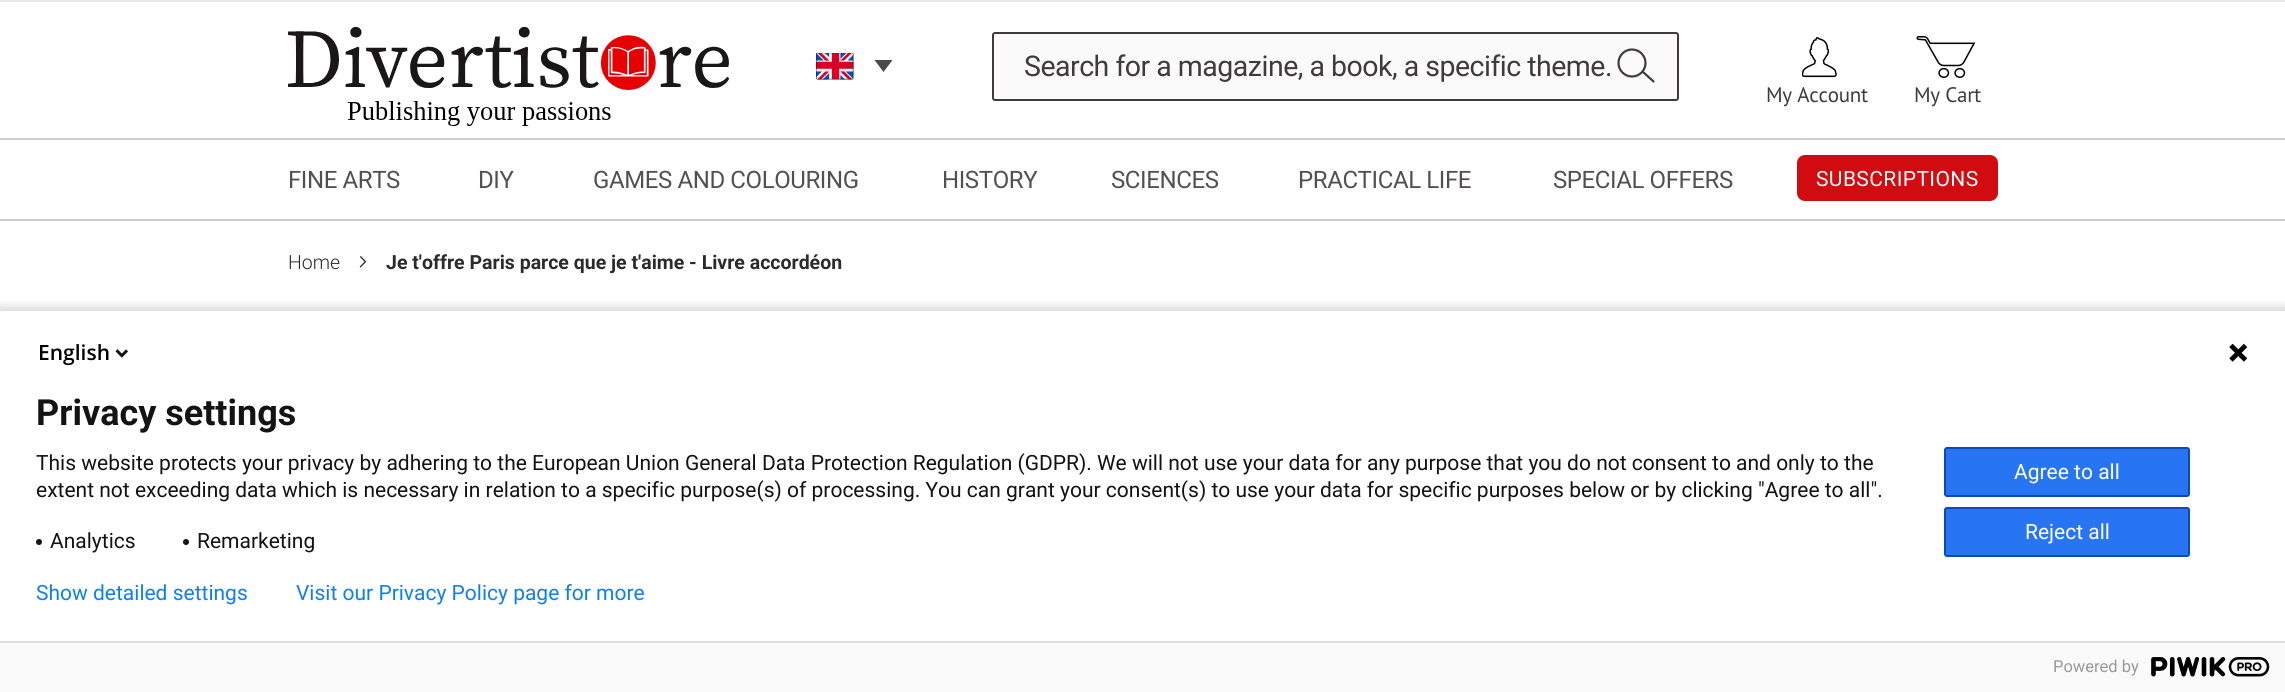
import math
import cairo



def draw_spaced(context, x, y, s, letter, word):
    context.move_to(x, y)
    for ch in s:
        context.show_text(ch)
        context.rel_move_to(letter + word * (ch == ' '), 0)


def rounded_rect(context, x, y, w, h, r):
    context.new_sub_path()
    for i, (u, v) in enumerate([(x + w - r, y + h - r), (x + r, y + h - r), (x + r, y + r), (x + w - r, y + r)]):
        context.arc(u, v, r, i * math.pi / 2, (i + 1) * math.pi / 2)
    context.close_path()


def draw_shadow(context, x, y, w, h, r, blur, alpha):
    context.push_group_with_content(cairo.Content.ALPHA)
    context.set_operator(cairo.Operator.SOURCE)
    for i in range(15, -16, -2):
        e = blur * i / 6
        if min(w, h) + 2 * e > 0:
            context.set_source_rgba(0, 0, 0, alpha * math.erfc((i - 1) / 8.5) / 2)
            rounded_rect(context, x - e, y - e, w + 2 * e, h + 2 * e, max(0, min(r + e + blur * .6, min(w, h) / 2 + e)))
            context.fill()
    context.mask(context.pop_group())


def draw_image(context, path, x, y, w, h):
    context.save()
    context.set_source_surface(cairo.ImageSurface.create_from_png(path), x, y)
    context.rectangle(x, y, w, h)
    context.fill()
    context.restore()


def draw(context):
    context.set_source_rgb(1, 1, 1)
    context.paint()
    context.set_source_rgb(232 / 255, 232 / 255, 232 / 255)
    context.rectangle(0, 0, 2285, 2)
    context.fill()
    draw_image(context, "images/1.png", 288, 27, 441, 99)
    draw_image(context, "images/2.png", 816, 53, 38, 27)
    context.set_source_rgb(74 / 255, 74 / 255, 74 / 255)
    context.new_path()
    context.move_to(874.5, 60)
    context.line_to(892.5, 60)
    context.line_to(883.5, 72)
    context.close_path()
    context.fill()
    context.set_source_rgb(250 / 255, 250 / 255, 250 / 255)
    rounded_rect(context, 993, 33, 685, 67, 2)
    context.fill_preserve()
    context.set_source_rgb(64 / 255, 57 / 255, 61 / 255)
    context.stroke()
    context.arc(1632, 63, 13.5, 0, 2 * math.pi)
    context.set_line_width(2.2)
    context.stroke()
    context.new_path()
    context.move_to(1643, 72)
    context.line_to(1653.5, 81.5)
    context.set_line_cap(cairo.LineCap.ROUND)
    context.set_line_join(cairo.LineJoin.ROUND)
    context.stroke()
    draw_image(context, "images/3.png", 1802, 37, 35, 41)
    draw_image(context, "images/4.png", 1916, 36, 60, 42)
    context.set_source_rgb(206 / 255, 206 / 255, 206 / 255)
    context.rectangle(0, 138, 2285, 2)
    context.fill()
    context.rectangle(0, 219, 2285, 2)
    context.fill()
    context.set_source_rgb(209 / 255, 11 / 255, 16 / 255)
    rounded_rect(context, 1798, 156, 199, 44, 7)
    context.fill_preserve()
    context.set_line_width(2)
    context.set_line_cap(cairo.LineCap.BUTT)
    context.set_line_join(cairo.LineJoin.MITER)
    context.stroke()
    draw_image(context, "images/5.png", 359, 256, 8, 12)
    context.set_source_rgb(0, 0, 0)
    draw_shadow(context, -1, 306, 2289, 386, 0, 4, 0.14)
    context.set_source_rgb(1, 1, 1)
    context.rectangle(0, 311, 2285, 330)
    context.fill()
    draw_image(context, "images/6.png", 115, 349, 13, 9)
    draw_image(context, "images/7.png", 2229, 343, 19, 19)
    context.set_source_rgb(19 / 255, 19 / 255, 19 / 255)
    context.arc(39, 542, 3, 0, 2 * math.pi)
    context.fill()
    context.arc(186, 542, 3, 0, 2 * math.pi)
    context.fill()
    context.set_source_rgb(39 / 255, 117 / 255, 242 / 255)
    rounded_rect(context, 1945, 448, 244, 48, 2)
    context.fill_preserve()
    context.set_source_rgb(11 / 255, 75 / 255, 179 / 255)
    context.stroke()
    context.set_source_rgb(39 / 255, 117 / 255, 242 / 255)
    rounded_rect(context, 1945, 508, 244, 48, 2)
    context.fill_preserve()
    context.set_source_rgb(11 / 255, 75 / 255, 179 / 255)
    context.stroke()
    context.set_source_rgb(250 / 255, 250 / 255, 250 / 255)
    context.rectangle(0, 643, 2285, 49)
    context.fill()
    context.set_source_rgb(221 / 255, 221 / 255, 221 / 255)
    context.rectangle(0, 641, 2285, 2)
    context.fill()
    draw_image(context, "images/8.png", 2151, 657, 119, 20)
    context.save()
    context.rectangle(1025, 50, 585, 34)
    context.clip()
    context.select_font_face("Roboto")
    context.set_font_size(28.5)
    context.set_source_rgb(64 / 255, 57 / 255, 61 / 255)
    draw_spaced(context, 1024, 76, "Search for a magazine, a book, a specific theme.", -0.5, 0)
    context.restore()
    context.select_font_face("PT Sans")
    context.set_font_size(21)
    context.set_source_rgb(64 / 255, 57 / 255, 61 / 255)
    draw_spaced(context, 1766, 102, "My Account", -0.25, 0)
    draw_spaced(context, 1914, 102, "My Cart", -0.25, 0)
    context.select_font_face("Roboto")
    context.set_font_size(24)
    context.set_source_rgb(84 / 255, 80 / 255, 79 / 255)
    draw_spaced(context, 288, 188, "FINE ARTS", -0.4, 0)
    draw_spaced(context, 478, 188, "DIY", -0.4, 0)
    draw_spaced(context, 593, 188, "GAMES AND COLOURING", -0.4, 0)
    draw_spaced(context, 942, 188, "HISTORY", -0.4, 0)
    draw_spaced(context, 1111, 188, "SCIENCES", -0.4, 0)
    draw_spaced(context, 1298, 188, "PRACTICAL LIFE", -0.4, 0)
    draw_spaced(context, 1553, 188, "SPECIAL OFFERS", -0.4, 0)
    context.set_font_size(21)
    context.set_source_rgb(1, 1, 1)
    draw_spaced(context, 1816, 186, "SUBSCRIPTIONS", 0.4, 0)
    context.select_font_face("Roboto Light")
    context.set_font_size(19.5)
    context.set_source_rgb(43 / 255, 43 / 255, 43 / 255)
    context.move_to(288, 269)
    context.show_text("Home")
    context.select_font_face("Roboto", cairo.FontSlant.NORMAL, cairo.FontWeight.BOLD)
    context.move_to(386, 269)
    context.show_text("Je t'offre Paris parce que je t'aime - Livre accordéon")
    context.select_font_face("Open Sans SemiBold")
    context.set_font_size(21)
    context.set_source_rgb(0, 0, 0)
    context.move_to(38, 360)
    context.show_text("English")
    context.select_font_face("Roboto", cairo.FontSlant.NORMAL, cairo.FontWeight.BOLD)
    context.set_font_size(36)
    context.set_source_rgb(19 / 255, 19 / 255, 19 / 255)
    context.move_to(36, 425)
    context.show_text("Privacy settings")
    context.select_font_face("Roboto")
    context.set_font_size(21)
    context.move_to(36, 470)
    context.show_text("This website protects your privacy by adhering to the European Union General Data Protection Regulation (GDPR). We will not use your data for any purpose that you do not consent to and only to the")
    context.move_to(36, 497)
    context.show_text("extent not exceeding data which is necessary in relation to a specific purpose(s) of processing. You can grant your consent(s) to use your data for specific purposes below or by clicking \"Agree to all\".")
    context.move_to(50, 548)
    context.show_text("Analytics")
    context.move_to(197, 548)
    context.show_text("Remarketing")
    context.set_source_rgb(1, 1, 1)
    context.move_to(2014, 479)
    context.show_text("Agree to all")
    context.move_to(2025, 539)
    context.show_text("Reject all")
    context.set_source_rgb(16 / 255, 126 / 255, 241 / 255)
    context.move_to(36, 600)
    context.show_text("Show detailed settings")
    context.move_to(296, 600)
    context.show_text("Visit our Privacy Policy page for more")
    context.set_font_size(16.5)
    context.set_source_rgb(153 / 255, 153 / 255, 153 / 255)
    context.move_to(2053, 672)
    context.show_text("Powered by")


surface = cairo.ImageSurface(cairo.Format.RGB24, 2285, 692)
context = cairo.Context(surface)
options = cairo.FontOptions()
options.set_hint_metrics(cairo.HintMetrics.OFF)
options.set_hint_style(cairo.HintStyle.NONE)
context.set_font_options(options)
context.set_miter_limit(4)
draw(context)
surface.write_to_png("out.png")
